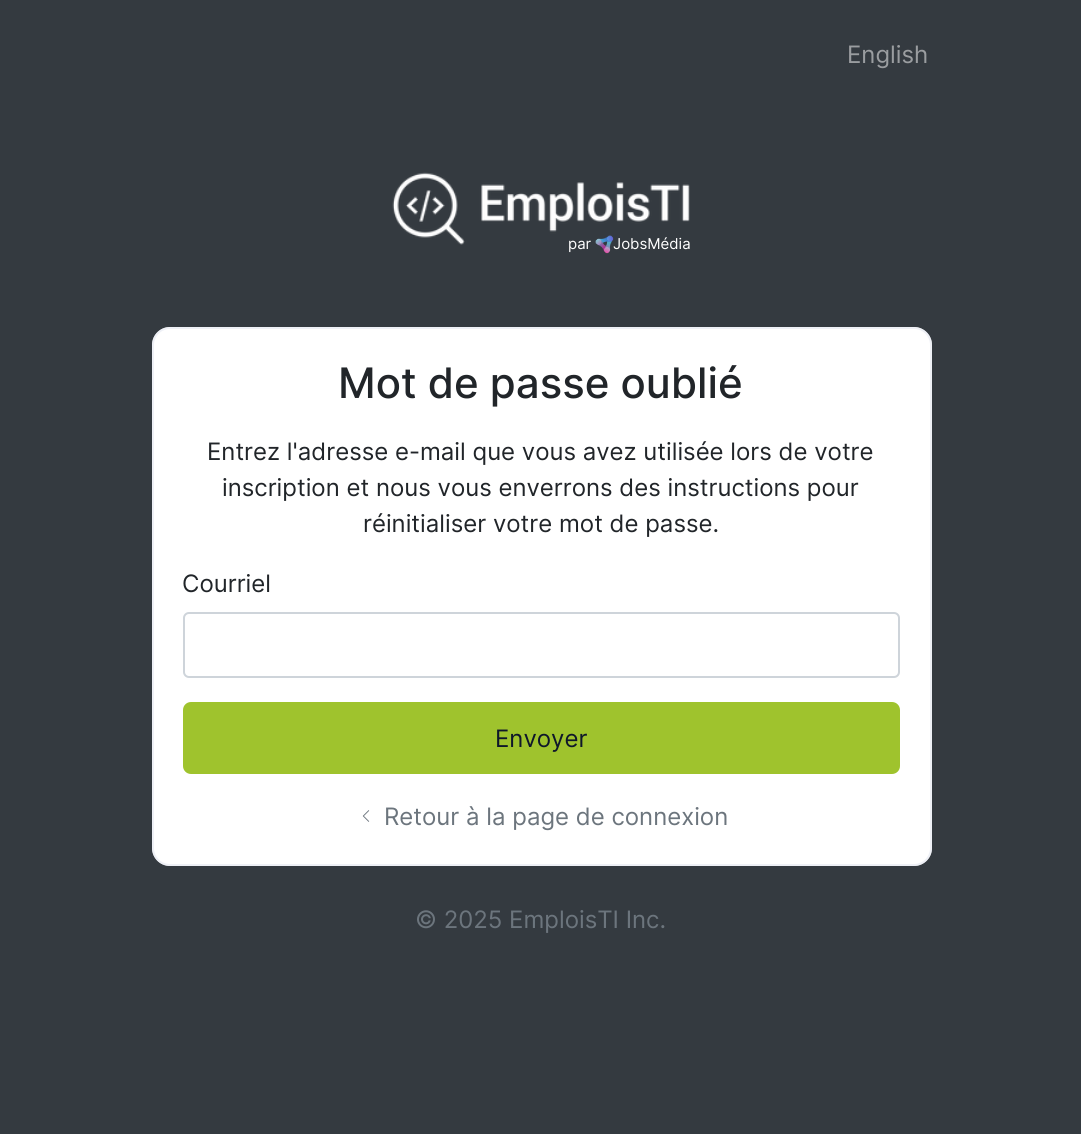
import math
import cairo



def rounded_rect(context, x, y, w, h, r):
    context.new_sub_path()
    for i, (u, v) in enumerate([(x + w - r, y + h - r), (x + r, y + h - r), (x + r, y + r), (x + w - r, y + r)]):
        context.arc(u, v, r, i * math.pi / 2, (i + 1) * math.pi / 2)
    context.close_path()


def draw_image(context, path, x, y, w, h):
    context.save()
    context.set_source_surface(cairo.ImageSurface.create_from_png(path), x, y)
    context.rectangle(x, y, w, h)
    context.fill()
    context.restore()


def draw(context):
    context.set_source_rgb(52 / 255, 58 / 255, 64 / 255)
    context.paint()
    draw_image(context, "images/1.png", 392, 172, 298, 73)
    draw_image(context, "images/2.png", 595, 235, 19, 19)
    context.set_source_rgb(1, 1, 1)
    rounded_rect(context, 152, 327, 780, 539, 18)
    context.fill()
    rounded_rect(context, 153, 328, 778, 537, 17)
    context.set_source_rgba(231 / 255, 234 / 255, 243 / 255, 0.7)
    context.stroke()
    rounded_rect(context, 184, 613, 715, 64, 5)
    context.set_source_rgb(206 / 255, 212 / 255, 218 / 255)
    context.stroke()
    context.set_source_rgb(159 / 255, 195 / 255, 45 / 255)
    rounded_rect(context, 184, 703, 715, 70, 7)
    context.fill_preserve()
    context.stroke()
    draw_image(context, "images/3.png", 362, 810, 8, 12)
    context.select_font_face("Inter")
    context.set_font_size(24)
    context.set_source_rgb(154 / 255, 157 / 255, 160 / 255)
    context.move_to(847, 63)
    context.show_text("English")
    context.set_font_size(15)
    context.set_source_rgb(1, 1, 1)
    context.move_to(568, 249)
    context.show_text("par")
    context.move_to(613, 249)
    context.show_text("JobsMédia")
    context.select_font_face("Inter Medium")
    context.set_font_size(42)
    context.set_source_rgb(33 / 255, 37 / 255, 41 / 255)
    context.move_to(338, 398)
    context.show_text("Mot de passe oublié")
    context.select_font_face("Inter")
    context.set_font_size(24)
    context.move_to(207, 460)
    context.show_text("Entrez l'adresse e-mail que vous avez utilisée lors de votre")
    context.move_to(222, 496)
    context.show_text("inscription et nous vous enverrons des instructions pour")
    context.move_to(363, 532)
    context.show_text("réinitialiser votre mot de passe.")
    context.move_to(182, 592)
    context.show_text("Courriel")
    context.set_source_rgb(15 / 255, 23 / 255, 42 / 255)
    context.move_to(495, 747)
    context.show_text("Envoyer")
    context.set_source_rgb(108 / 255, 117 / 255, 125 / 255)
    context.move_to(384, 825)
    context.show_text("Retour à la page de connexion")
    context.move_to(415, 928)
    context.show_text("© 2025 EmploisTI Inc.")


surface = cairo.ImageSurface(cairo.Format.RGB24, 1081, 1134)
context = cairo.Context(surface)
options = cairo.FontOptions()
options.set_hint_metrics(cairo.HintMetrics.OFF)
options.set_hint_style(cairo.HintStyle.NONE)
context.set_font_options(options)
context.set_miter_limit(4)
draw(context)
surface.write_to_png("out.png")
